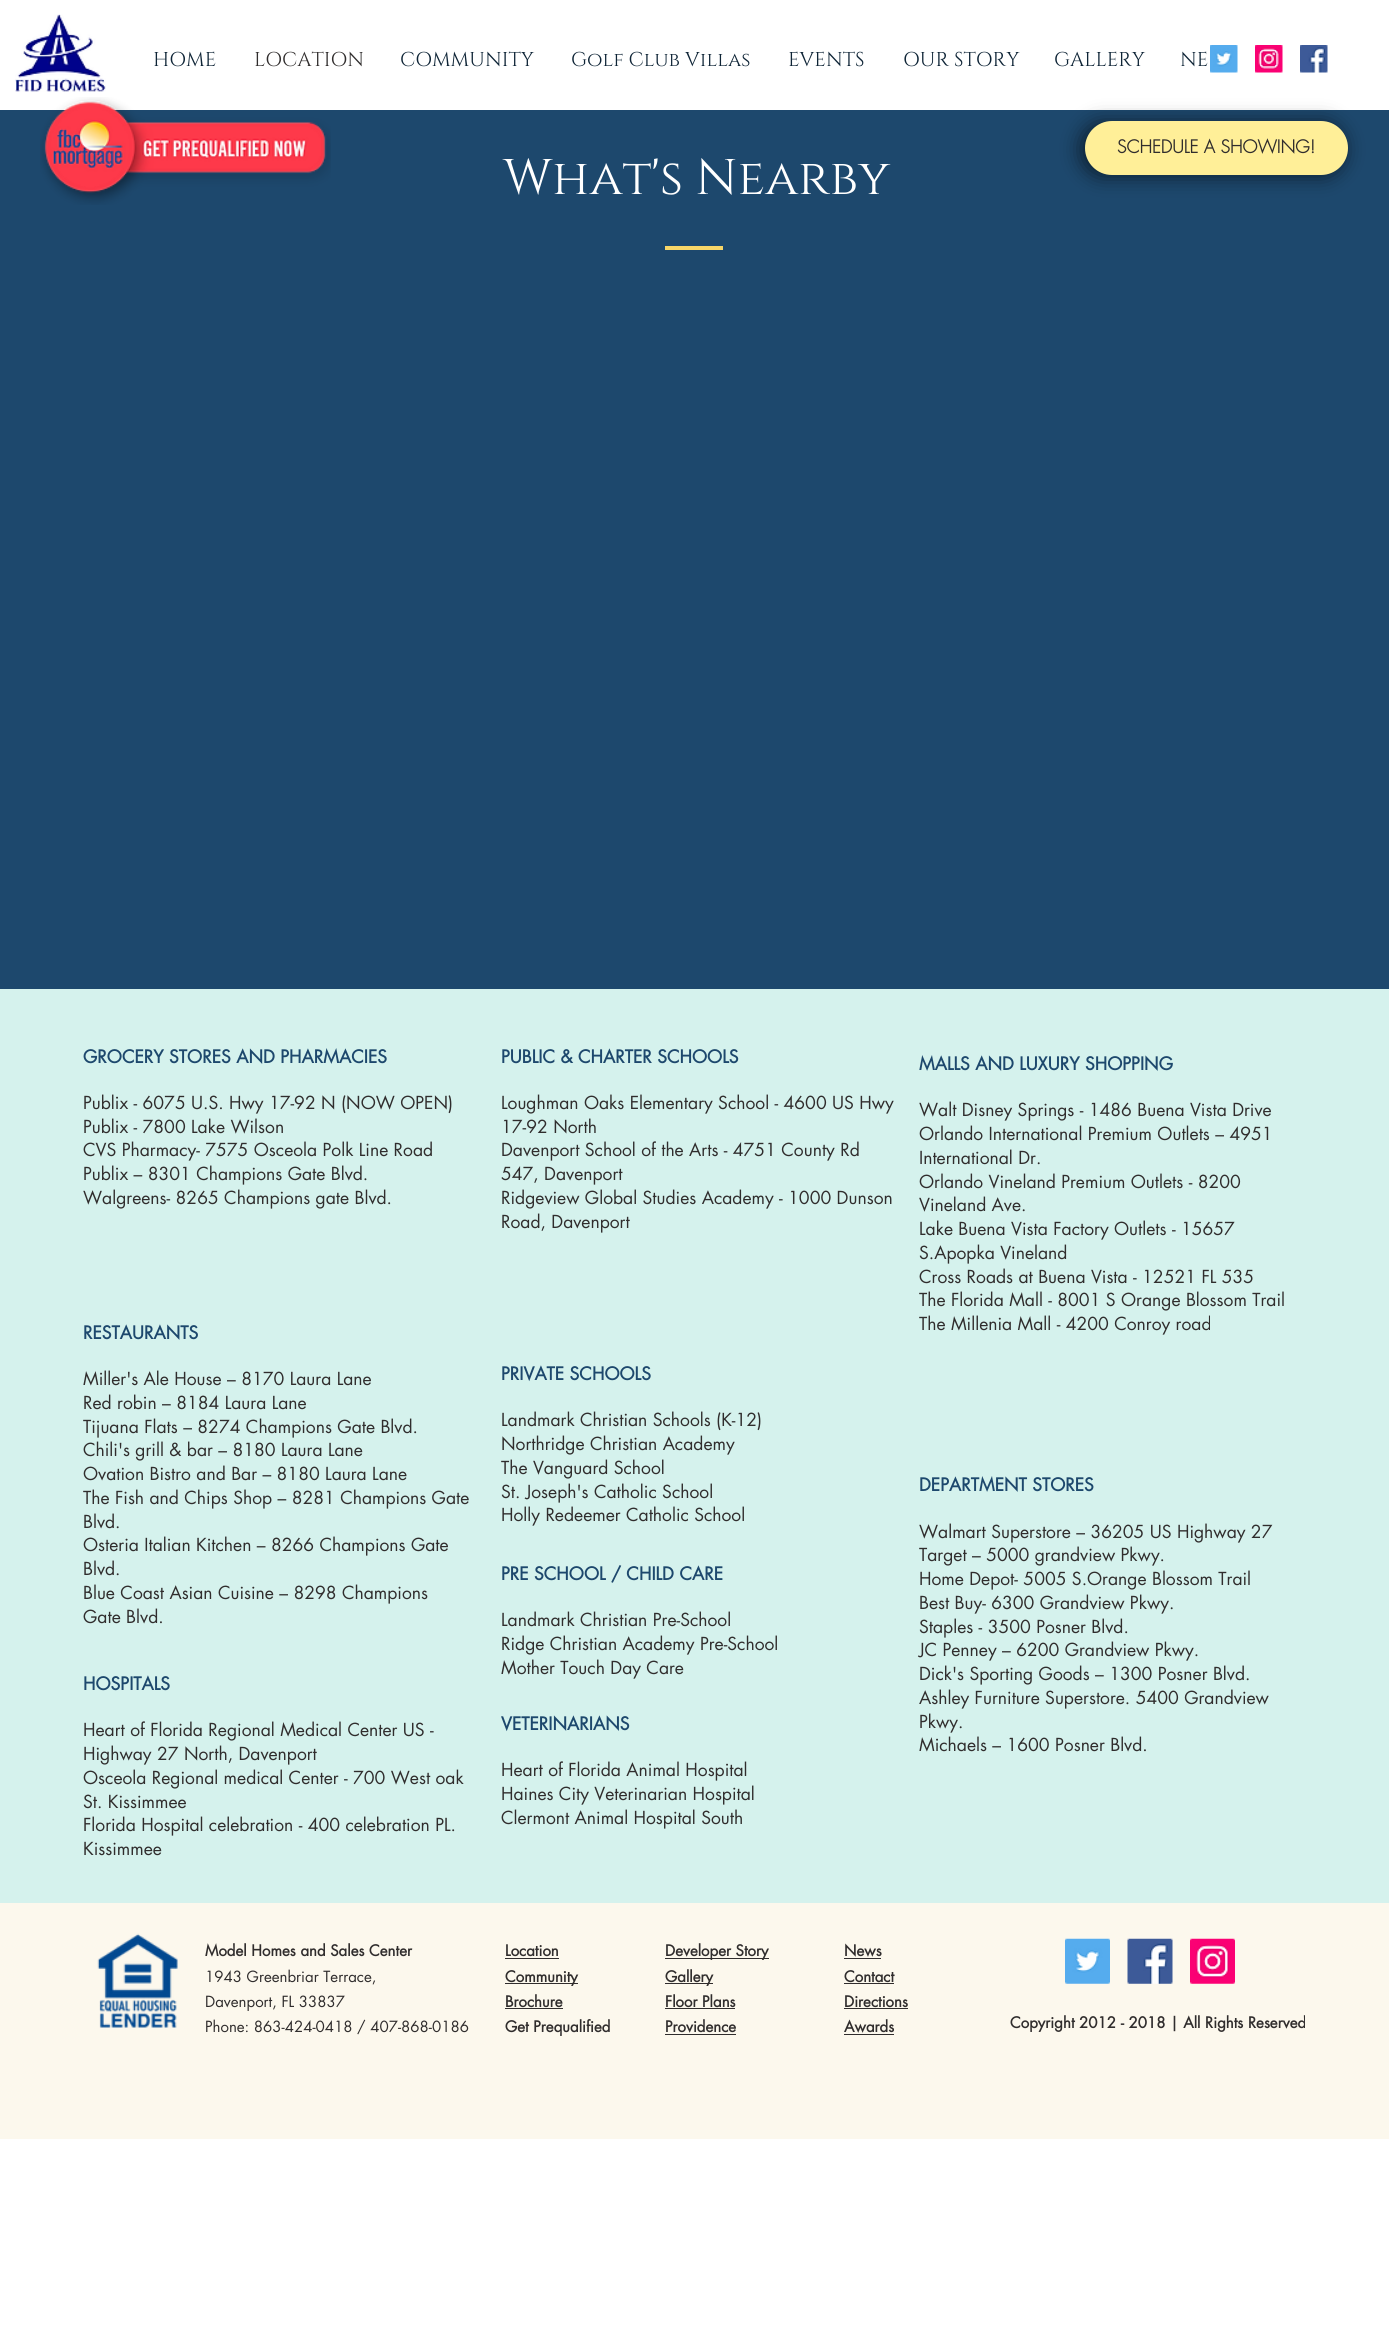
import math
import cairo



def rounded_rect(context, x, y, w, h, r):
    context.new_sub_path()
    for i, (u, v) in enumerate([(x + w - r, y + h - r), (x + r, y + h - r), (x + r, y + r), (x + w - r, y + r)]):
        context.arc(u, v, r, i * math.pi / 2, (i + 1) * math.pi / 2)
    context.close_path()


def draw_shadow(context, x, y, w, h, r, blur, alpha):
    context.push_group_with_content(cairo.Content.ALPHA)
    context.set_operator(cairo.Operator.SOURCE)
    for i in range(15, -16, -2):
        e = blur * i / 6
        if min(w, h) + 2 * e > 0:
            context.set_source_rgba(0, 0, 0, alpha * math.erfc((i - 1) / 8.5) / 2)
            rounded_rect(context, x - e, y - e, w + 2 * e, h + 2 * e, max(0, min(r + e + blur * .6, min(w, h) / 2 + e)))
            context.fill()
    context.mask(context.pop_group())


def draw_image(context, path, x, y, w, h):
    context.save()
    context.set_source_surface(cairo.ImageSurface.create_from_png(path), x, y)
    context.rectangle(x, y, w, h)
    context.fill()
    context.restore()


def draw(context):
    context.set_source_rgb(1, 1, 1)
    context.paint()
    draw_image(context, "images/1.png", 15, 14, 91, 78)
    context.set_source_rgb(29 / 255, 72 / 255, 109 / 255)
    context.rectangle(0, 110, 1389, 879)
    context.fill()
    draw_image(context, "images/2.png", 40, 97, 291, 108)
    draw_image(context, "images/3.png", 1210, 45, 28, 28)
    draw_image(context, "images/4.png", 1255, 45, 28, 28)
    draw_image(context, "images/5.png", 1300, 45, 28, 28)
    context.set_source_rgb(0, 0, 0)
    draw_shadow(context, 1081, 123, 263, 53, 26.5, 10, 0.6)
    context.set_source_rgb(1, 239 / 255, 152 / 255)
    rounded_rect(context, 1085, 121, 263, 54, 27)
    context.fill()
    context.set_source_rgb(247 / 255, 214 / 255, 104 / 255)
    context.rectangle(665, 246, 58, 4)
    context.fill()
    context.set_source_rgb(213 / 255, 242 / 255, 237 / 255)
    context.rectangle(0, 989, 1389, 914)
    context.fill()
    context.set_source_rgb(252 / 255, 248 / 255, 237 / 255)
    context.rectangle(0, 1903, 1389, 236)
    context.fill()
    draw_image(context, "images/6.png", 97, 1933, 81, 95)
    context.set_source_rgb(48 / 255, 45 / 255, 45 / 255)
    context.rectangle(505, 1958, 54, 1)
    context.fill()
    context.rectangle(505, 1983, 73, 1)
    context.fill()
    context.rectangle(505, 2008, 58, 1)
    context.fill()
    context.rectangle(665, 1958, 104, 1)
    context.fill()
    context.rectangle(665, 1983, 48, 1)
    context.fill()
    context.rectangle(665, 2008, 70, 1)
    context.fill()
    context.rectangle(665, 2034, 71, 1)
    context.fill()
    context.rectangle(844, 1958, 37, 1)
    context.fill()
    context.rectangle(844, 1983, 50, 1)
    context.fill()
    context.rectangle(844, 2008, 64, 1)
    context.fill()
    context.rectangle(844, 2034, 50, 1)
    context.fill()
    draw_image(context, "images/7.png", 1065, 1938, 45, 46)
    draw_image(context, "images/8.png", 1127, 1938, 46, 46)
    draw_image(context, "images/9.png", 1190, 1938, 45, 46)
    context.select_font_face("Cinzel")
    context.set_font_size(20)
    context.set_source_rgb(14 / 255, 36 / 255, 54 / 255)
    context.move_to(153, 66)
    context.show_text("HOME")
    context.set_source_rgb(48 / 255, 45 / 255, 45 / 255)
    context.move_to(254, 66)
    context.show_text("LOCATION")
    context.set_source_rgb(14 / 255, 36 / 255, 54 / 255)
    context.move_to(400, 66)
    context.show_text("COMMUNITY")
    context.move_to(571, 66)
    context.show_text("Golf Club Villas")
    context.move_to(788, 66)
    context.show_text("EVENTS")
    context.move_to(903, 66)
    context.show_text("OUR STORY")
    context.move_to(1054, 66)
    context.show_text("GALLERY")
    context.move_to(1180, 66)
    context.show_text("NE")
    context.select_font_face("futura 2", cairo.FontSlant.NORMAL, cairo.FontWeight.BOLD)
    context.set_font_size(17.5)
    context.set_source_rgb(48 / 255, 45 / 255, 45 / 255)
    context.move_to(1117, 153)
    context.show_text("SCHEDULE A SHOWING!")
    context.select_font_face("Cinzel")
    context.set_font_size(50)
    context.set_source_rgb(1, 1, 1)
    context.move_to(503, 194)
    context.show_text("What's Nearby")
    context.select_font_face("futura", cairo.FontSlant.NORMAL, cairo.FontWeight.BOLD)
    context.set_font_size(17.5)
    context.set_source_rgb(29 / 255, 72 / 255, 109 / 255)
    context.move_to(83, 1063)
    context.show_text("GROCERY STORES AND PHARMACIES")
    context.select_font_face("futura")
    context.set_source_rgb(48 / 255, 45 / 255, 45 / 255)
    context.move_to(83, 1109)
    context.show_text("Publix - 6075 U.S. Hwy 17-92 N (NOW OPEN)")
    context.move_to(83, 1133)
    context.show_text("Publix - 7800 Lake Wilson")
    context.move_to(83, 1156)
    context.show_text("CVS Pharmacy- 7575 Osceola Polk Line Road")
    context.move_to(83, 1180)
    context.show_text("Publix – 8301 Champions Gate Blvd.")
    context.move_to(83, 1204)
    context.show_text("Walgreens- 8265 Champions gate Blvd.")
    context.select_font_face("futura", cairo.FontSlant.NORMAL, cairo.FontWeight.BOLD)
    context.set_source_rgb(29 / 255, 72 / 255, 109 / 255)
    context.move_to(501, 1063)
    context.show_text("PUBLIC & CHARTER SCHOOLS")
    context.select_font_face("futura")
    context.set_source_rgb(48 / 255, 45 / 255, 45 / 255)
    context.move_to(501, 1109)
    context.show_text("Loughman Oaks Elementary School - 4600 US Hwy")
    context.move_to(501, 1133)
    context.show_text("17-92 North")
    context.move_to(501, 1156)
    context.show_text("Davenport School of the Arts - 4751 County Rd")
    context.move_to(501, 1180)
    context.show_text("547, Davenport")
    context.move_to(501, 1204)
    context.show_text("Ridgeview Global Studies Academy - 1000 Dunson")
    context.move_to(501, 1228)
    context.show_text("Road, Davenport")
    context.select_font_face("futura", cairo.FontSlant.NORMAL, cairo.FontWeight.BOLD)
    context.set_source_rgb(29 / 255, 72 / 255, 109 / 255)
    context.move_to(919, 1070)
    context.show_text("MALLS AND LUXURY SHOPPING")
    context.select_font_face("futura")
    context.set_source_rgb(48 / 255, 45 / 255, 45 / 255)
    context.move_to(919, 1116)
    context.show_text("Walt Disney Springs - 1486 Buena Vista Drive")
    context.move_to(919, 1140)
    context.show_text("Orlando International Premium Outlets – 4951")
    context.move_to(919, 1164)
    context.show_text("International Dr.")
    context.move_to(919, 1188)
    context.show_text("Orlando Vineland Premium Outlets - 8200")
    context.move_to(919, 1211)
    context.show_text("Vineland Ave.")
    context.move_to(919, 1235)
    context.show_text("Lake Buena Vista Factory Outlets - 15657")
    context.move_to(919, 1259)
    context.show_text("S.Apopka Vineland")
    context.move_to(919, 1283)
    context.show_text("Cross Roads at Buena Vista - 12521 FL 535")
    context.move_to(919, 1306)
    context.show_text("The Florida Mall - 8001 S Orange Blossom Trail")
    context.move_to(919, 1330)
    context.show_text("The Millenia Mall - 4200 Conroy road")
    context.select_font_face("futura", cairo.FontSlant.NORMAL, cairo.FontWeight.BOLD)
    context.set_source_rgb(29 / 255, 72 / 255, 109 / 255)
    context.move_to(83, 1339)
    context.show_text("RESTAURANTS")
    context.select_font_face("futura")
    context.set_source_rgb(48 / 255, 45 / 255, 45 / 255)
    context.move_to(83, 1385)
    context.show_text("Miller's Ale House – 8170 Laura Lane")
    context.move_to(83, 1409)
    context.show_text("Red robin – 8184 Laura Lane")
    context.move_to(83, 1433)
    context.show_text("Tijuana Flats – 8274 Champions Gate Blvd.")
    context.move_to(83, 1456)
    context.show_text("Chili's grill & bar – 8180 Laura Lane")
    context.move_to(83, 1480)
    context.show_text("Ovation Bistro and Bar – 8180 Laura Lane")
    context.move_to(83, 1504)
    context.show_text("The Fish and Chips Shop – 8281 Champions Gate")
    context.move_to(83, 1528)
    context.show_text("Blvd.")
    context.move_to(83, 1551)
    context.show_text("Osteria Italian Kitchen – 8266 Champions Gate")
    context.move_to(83, 1575)
    context.show_text("Blvd.")
    context.move_to(83, 1599)
    context.show_text("Blue Coast Asian Cuisine – 8298 Champions")
    context.move_to(83, 1623)
    context.show_text("Gate Blvd.")
    context.select_font_face("futura", cairo.FontSlant.NORMAL, cairo.FontWeight.BOLD)
    context.set_source_rgb(29 / 255, 72 / 255, 109 / 255)
    context.move_to(501, 1380)
    context.show_text("PRIVATE SCHOOLS")
    context.select_font_face("futura")
    context.set_source_rgb(48 / 255, 45 / 255, 45 / 255)
    context.move_to(501, 1426)
    context.show_text("Landmark Christian Schools (K-12)")
    context.move_to(501, 1450)
    context.show_text("Northridge Christian Academy")
    context.move_to(501, 1474)
    context.show_text("The Vanguard School")
    context.move_to(501, 1498)
    context.show_text("St. Joseph's Catholic School")
    context.move_to(501, 1521)
    context.show_text("Holly Redeemer Catholic School")
    context.select_font_face("futura", cairo.FontSlant.NORMAL, cairo.FontWeight.BOLD)
    context.set_source_rgb(29 / 255, 72 / 255, 109 / 255)
    context.move_to(501, 1580)
    context.show_text("PRE SCHOOL / CHILD CARE")
    context.select_font_face("futura")
    context.set_source_rgb(48 / 255, 45 / 255, 45 / 255)
    context.move_to(501, 1626)
    context.show_text("Landmark Christian Pre-School")
    context.move_to(501, 1650)
    context.show_text("Ridge Christian Academy Pre-School")
    context.move_to(501, 1674)
    context.show_text("Mother Touch Day Care")
    context.select_font_face("futura", cairo.FontSlant.NORMAL, cairo.FontWeight.BOLD)
    context.set_source_rgb(29 / 255, 72 / 255, 109 / 255)
    context.move_to(919, 1491)
    context.show_text("DEPARTMENT STORES")
    context.select_font_face("futura")
    context.set_source_rgb(48 / 255, 45 / 255, 45 / 255)
    context.move_to(919, 1538)
    context.show_text("Walmart Superstore – 36205 US Highway 27")
    context.move_to(919, 1561)
    context.show_text("Target – 5000 grandview Pkwy.")
    context.move_to(919, 1585)
    context.show_text("Home Depot- 5005 S.Orange Blossom Trail")
    context.move_to(919, 1609)
    context.show_text("Best Buy- 6300 Grandview Pkwy.")
    context.move_to(919, 1633)
    context.show_text("Staples - 3500 Posner Blvd.")
    context.move_to(919, 1656)
    context.show_text("JC Penney – 6200 Grandview Pkwy.")
    context.move_to(919, 1680)
    context.show_text("Dick's Sporting Goods – 1300 Posner Blvd.")
    context.move_to(919, 1704)
    context.show_text("Ashley Furniture Superstore. 5400 Grandview")
    context.move_to(919, 1728)
    context.show_text("Pkwy.")
    context.move_to(919, 1751)
    context.show_text("Michaels – 1600 Posner Blvd.")
    context.select_font_face("futura", cairo.FontSlant.NORMAL, cairo.FontWeight.BOLD)
    context.set_source_rgb(29 / 255, 72 / 255, 109 / 255)
    context.move_to(83, 1690)
    context.show_text("HOSPITALS")
    context.select_font_face("futura")
    context.set_source_rgb(48 / 255, 45 / 255, 45 / 255)
    context.move_to(83, 1736)
    context.show_text("Heart of Florida Regional Medical Center US -")
    context.move_to(83, 1760)
    context.show_text("Highway 27 North, Davenport")
    context.move_to(83, 1784)
    context.show_text("Osceola Regional medical Center - 700 West oak")
    context.move_to(83, 1808)
    context.show_text("St. Kissimmee")
    context.move_to(83, 1831)
    context.show_text("Florida Hospital celebration - 400 celebration PL.")
    context.move_to(83, 1855)
    context.show_text("Kissimmee")
    context.select_font_face("futura", cairo.FontSlant.NORMAL, cairo.FontWeight.BOLD)
    context.set_source_rgb(29 / 255, 72 / 255, 109 / 255)
    context.move_to(501, 1730)
    context.show_text("VETERINARIANS")
    context.select_font_face("futura")
    context.set_source_rgb(48 / 255, 45 / 255, 45 / 255)
    context.move_to(501, 1776)
    context.show_text("Heart of Florida Animal Hospital")
    context.move_to(501, 1800)
    context.show_text("Haines City Veterinarian Hospital")
    context.move_to(501, 1824)
    context.show_text("Clermont Animal Hospital South")
    context.select_font_face("futura", cairo.FontSlant.NORMAL, cairo.FontWeight.BOLD)
    context.set_font_size(15)
    context.move_to(205, 1956)
    context.show_text("Model Homes and Sales Center")
    context.select_font_face("futura")
    context.move_to(205, 1982)
    context.show_text("1943 Greenbriar Terrace,")
    context.move_to(205, 2007)
    context.show_text("Davenport, FL 33837")
    context.move_to(205, 2032)
    context.show_text("Phone: 863-424-0418 / 407-868-0186")
    context.select_font_face("futura", cairo.FontSlant.NORMAL, cairo.FontWeight.BOLD)
    context.move_to(505, 1956)
    context.show_text("Location")
    context.move_to(505, 1982)
    context.show_text("Community")
    context.move_to(505, 2007)
    context.show_text("Brochure")
    context.move_to(505, 2032)
    context.show_text("Get Prequalified")
    context.move_to(665, 1956)
    context.show_text("Developer Story")
    context.move_to(665, 1982)
    context.show_text("Gallery")
    context.move_to(665, 2007)
    context.show_text("Floor Plans")
    context.move_to(665, 2032)
    context.show_text("Providence")
    context.move_to(844, 1956)
    context.show_text("News")
    context.move_to(844, 1982)
    context.show_text("Contact")
    context.move_to(844, 2007)
    context.show_text("Directions")
    context.move_to(844, 2032)
    context.show_text("Awards")
    context.move_to(1010, 2028)
    context.show_text("Copyright 2012 - 2018 | All Rights Reserved")


surface = cairo.ImageSurface(cairo.Format.RGB24, 1389, 2344)
context = cairo.Context(surface)
options = cairo.FontOptions()
options.set_hint_metrics(cairo.HintMetrics.OFF)
options.set_hint_style(cairo.HintStyle.NONE)
context.set_font_options(options)
context.set_miter_limit(4)
draw(context)
surface.write_to_png("out.png")
